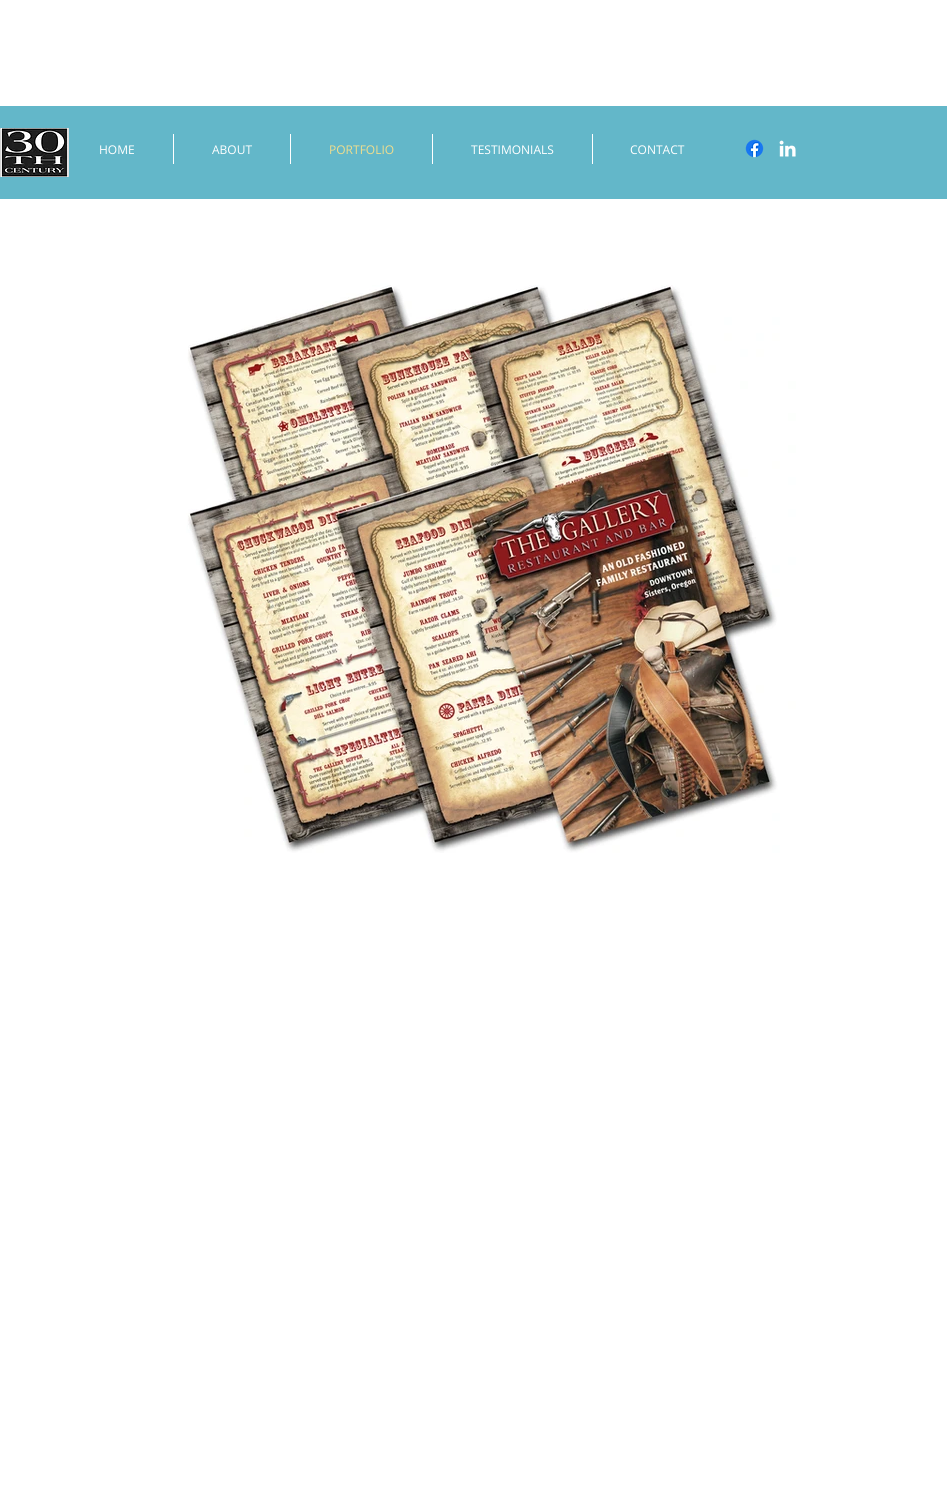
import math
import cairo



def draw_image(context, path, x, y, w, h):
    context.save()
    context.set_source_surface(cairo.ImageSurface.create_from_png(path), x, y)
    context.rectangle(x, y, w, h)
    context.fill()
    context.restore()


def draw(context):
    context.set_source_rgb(1, 1, 1)
    context.paint()
    context.set_source_rgb(99 / 255, 183 / 255, 201 / 255)
    context.rectangle(0, 106, 947, 93)
    context.fill()
    draw_image(context, "images/1.png", 0, 128, 69, 49)
    context.set_source_rgb(1, 1, 1)
    context.rectangle(173, 134, 1, 30)
    context.fill()
    context.rectangle(290, 134, 1, 30)
    context.fill()
    context.rectangle(432, 134, 1, 30)
    context.fill()
    context.rectangle(592, 134, 1, 30)
    context.fill()
    draw_image(context, "images/2.png", 745, 139, 19, 19)
    draw_image(context, "images/3.png", 779, 140, 17, 17)
    draw_image(context, "images/4.png", 180, 277, 618, 580)
    context.select_font_face("Open Sans")
    context.set_font_size(12)
    context.move_to(99, 154)
    context.show_text("HOME")
    context.move_to(212, 154)
    context.show_text("ABOUT")
    context.set_source_rgb(239 / 255, 221 / 255, 141 / 255)
    context.move_to(329, 154)
    context.show_text("PORTFOLIO")
    context.set_source_rgb(1, 1, 1)
    context.move_to(471, 154)
    context.show_text("TESTIMONIALS")
    context.move_to(630, 154)
    context.show_text("CONTACT")


surface = cairo.ImageSurface(cairo.Format.RGB24, 947, 1485)
context = cairo.Context(surface)
options = cairo.FontOptions()
options.set_hint_metrics(cairo.HintMetrics.OFF)
options.set_hint_style(cairo.HintStyle.NONE)
context.set_font_options(options)
context.set_miter_limit(4)
draw(context)
surface.write_to_png("out.png")
